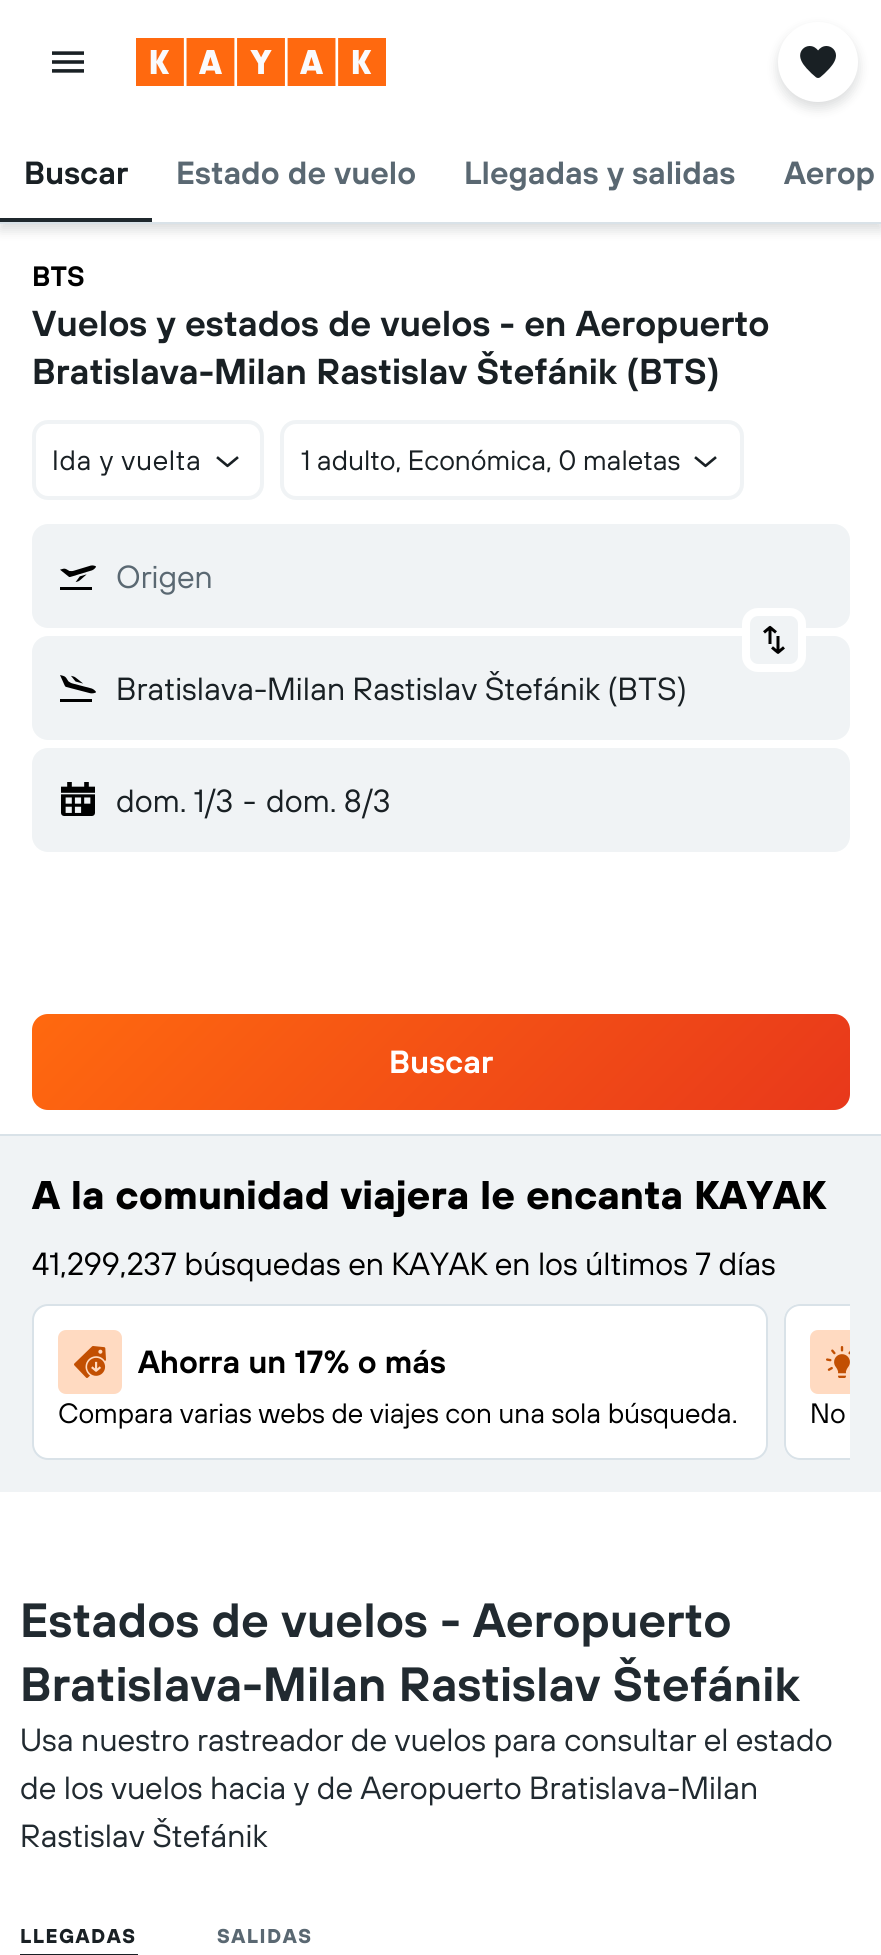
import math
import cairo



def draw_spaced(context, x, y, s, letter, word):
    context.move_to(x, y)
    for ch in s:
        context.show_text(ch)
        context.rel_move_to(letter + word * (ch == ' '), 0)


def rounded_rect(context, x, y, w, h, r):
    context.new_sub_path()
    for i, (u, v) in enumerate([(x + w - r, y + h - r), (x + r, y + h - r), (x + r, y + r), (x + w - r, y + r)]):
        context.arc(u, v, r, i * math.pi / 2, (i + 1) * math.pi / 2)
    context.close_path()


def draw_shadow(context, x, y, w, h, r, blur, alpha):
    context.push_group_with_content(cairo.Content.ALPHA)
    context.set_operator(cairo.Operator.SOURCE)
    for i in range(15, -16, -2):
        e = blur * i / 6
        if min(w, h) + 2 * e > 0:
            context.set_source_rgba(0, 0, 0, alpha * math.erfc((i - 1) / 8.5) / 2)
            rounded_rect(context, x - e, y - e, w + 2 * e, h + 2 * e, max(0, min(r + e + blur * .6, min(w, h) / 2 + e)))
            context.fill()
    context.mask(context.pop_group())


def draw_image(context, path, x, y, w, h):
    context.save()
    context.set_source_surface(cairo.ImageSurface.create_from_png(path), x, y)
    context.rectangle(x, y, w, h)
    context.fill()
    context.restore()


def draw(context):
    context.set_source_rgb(1, 1, 1)
    context.paint()
    draw_image(context, "images/1.png", 52, 51, 32, 22)
    draw_image(context, "images/2.png", 136, 38, 250, 48)
    context.save()
    context.rectangle(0, 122, 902, 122)
    context.clip()
    context.set_source_rgb(25 / 255, 32 / 255, 36 / 255)
    draw_shadow(context, 0, 128, 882, 102, 0, 6, 0.16)
    context.restore()
    context.set_source_rgb(1, 1, 1)
    context.rectangle(0, 122, 881, 100)
    context.fill()
    context.set_source_rgb(25 / 255, 32 / 255, 36 / 255)
    draw_shadow(context, 778, 28, 80, 80, 40, 6, 0.16)
    context.set_source_rgb(1, 1, 1)
    context.arc(818, 62, 40, 0, 2 * math.pi)
    context.fill()
    draw_image(context, "images/3.png", 800, 46, 36, 32)
    context.set_source_rgb(217 / 255, 226 / 255, 232 / 255)
    context.rectangle(0, 222, 881, 2)
    context.fill()
    context.set_source_rgb(31 / 255, 40 / 255, 45 / 255)
    context.rectangle(0, 218, 152, 4)
    context.fill()
    rounded_rect(context, 34, 422, 228, 76, 14)
    context.set_source_rgb(240 / 255, 243 / 255, 245 / 255)
    context.set_line_width(4)
    context.stroke()
    draw_image(context, "images/4.png", 216, 456, 23, 12)
    rounded_rect(context, 282, 422, 460, 76, 14)
    context.stroke()
    draw_image(context, "images/4.png", 694, 456, 23, 12)
    rounded_rect(context, 33, 525, 816, 102, 15)
    context.fill_preserve()
    context.set_line_width(2)
    context.stroke()
    draw_image(context, "images/5.png", 60, 565, 36, 25)
    rounded_rect(context, 33, 637, 816, 102, 15)
    context.fill_preserve()
    context.stroke()
    context.new_path()
    context.move_to(806, 624)
    context.line_to(806, 656)
    context.curve_to(806, 665, 799, 672, 790, 672)
    context.line_to(758, 672)
    context.curve_to(749, 672, 742, 665, 742, 656)
    context.line_to(742, 624)
    context.curve_to(742, 615, 749, 608, 758, 608)
    context.line_to(790, 608)
    context.curve_to(799, 608, 806, 615, 806, 624)
    context.close_path()
    context.fill()
    context.new_path()
    context.move_to(802, 624)
    context.line_to(802, 656)
    context.curve_to(802, 662.5, 796.5, 668, 790, 668)
    context.line_to(758, 668)
    context.curve_to(751.5, 668, 746, 662.5, 746, 656)
    context.line_to(746, 624)
    context.curve_to(746, 617.5, 751.5, 612, 758, 612)
    context.line_to(790, 612)
    context.curve_to(796.5, 612, 802, 617.5, 802, 624)
    context.close_path()
    context.set_source_rgb(1, 1, 1)
    context.set_line_width(8)
    context.stroke()
    draw_image(context, "images/6.png", 763, 625, 22, 29)
    draw_image(context, "images/7.png", 60, 675, 36, 27)
    context.set_source_rgb(240 / 255, 243 / 255, 245 / 255)
    rounded_rect(context, 33, 749, 816, 102, 15)
    context.fill_preserve()
    context.set_line_width(2)
    context.stroke()
    draw_image(context, "images/8.png", 61, 782, 34, 34)
    gradient = cairo.LinearGradient(213, 834, 670, 1291)
    gradient.add_color_stop_rgba(0, 1, 105 / 255, 15 / 255, 1)
    gradient.add_color_stop_rgba(1, 232 / 255, 56 / 255, 27 / 255, 1)
    context.set_source(gradient)
    rounded_rect(context, 32, 1014, 818, 96, 16)
    context.fill()
    context.set_source_rgb(240 / 255, 243 / 255, 245 / 255)
    context.rectangle(0, 1136, 881, 356)
    context.fill()
    context.set_source_rgb(217 / 255, 226 / 255, 232 / 255)
    context.rectangle(0, 1134, 881, 2)
    context.fill()
    context.set_source_rgb(1, 1, 1)
    rounded_rect(context, 33, 1305, 734, 154, 15)
    context.fill_preserve()
    context.set_source_rgb(217 / 255, 226 / 255, 232 / 255)
    context.stroke()
    context.set_source_rgb(1, 218 / 255, 193 / 255)
    rounded_rect(context, 58, 1330, 64, 64, 8)
    context.fill()
    draw_image(context, "images/9.png", 74, 1346, 32, 32)
    context.set_source_rgb(1, 1, 1)
    context.new_path()
    context.move_to(800, 1304)
    context.line_to(850, 1304)
    context.line_to(850, 1460)
    context.line_to(800, 1460)
    context.curve_to(791, 1460, 784, 1453, 784, 1444)
    context.line_to(784, 1320)
    context.curve_to(784, 1311, 791, 1304, 800, 1304)
    context.close_path()
    context.fill()
    context.save()
    context.rectangle(32, 1304, 818, 156)
    context.clip()
    rounded_rect(context, 785, 1305, 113, 154, 15)
    context.set_source_rgb(217 / 255, 226 / 255, 232 / 255)
    context.stroke()
    context.restore()
    context.set_source_rgb(1, 218 / 255, 193 / 255)
    context.new_path()
    context.move_to(818, 1330)
    context.line_to(850, 1330)
    context.line_to(850, 1394)
    context.line_to(818, 1394)
    context.curve_to(813.5, 1394, 810, 1390.5, 810, 1386)
    context.line_to(810, 1338)
    context.curve_to(810, 1333.5, 813.5, 1330, 818, 1330)
    context.close_path()
    context.fill()
    draw_image(context, "images/10.png", 826, 1346, 24, 32)
    context.set_source_rgb(25 / 255, 32 / 255, 36 / 255)
    context.rectangle(20, 1954, 118, 1)
    context.fill()
    context.select_font_face("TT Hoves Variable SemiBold")
    context.set_font_size(32)
    context.move_to(24, 184)
    context.show_text("Buscar")
    context.set_source_rgb(90 / 255, 104 / 255, 114 / 255)
    context.move_to(176, 184)
    context.show_text("Estado de vuelo")
    context.move_to(464, 184)
    context.show_text("Llegadas y salidas")
    context.move_to(784, 184)
    context.show_text("Aerop")
    context.set_font_size(28)
    context.set_source_rgb(0, 0, 0)
    context.move_to(32, 286)
    context.show_text("BTS")
    context.set_font_size(36)
    context.set_source_rgb(25 / 255, 32 / 255, 36 / 255)
    context.move_to(32, 336)
    context.show_text("Vuelos y estados de vuelos - en Aeropuerto")
    context.move_to(32, 384)
    context.show_text("Bratislava-Milan Rastislav Štefánik (BTS)")
    context.select_font_face("TT Hoves Variable")
    context.set_font_size(28)
    draw_spaced(context, 52, 470, "Ida y vuelta", 0.75, 0)
    context.move_to(301, 470)
    context.show_text("1 adulto, Económica, 0 maletas")
    context.set_font_size(32)
    context.set_source_rgb(90 / 255, 104 / 255, 114 / 255)
    context.move_to(116, 588)
    context.show_text("Origen")
    context.set_source_rgb(25 / 255, 32 / 255, 36 / 255)
    context.move_to(116, 700)
    context.show_text("Bratislava-Milan Rastislav Štefánik (BTS)")
    context.move_to(116, 812)
    context.show_text("dom. 1/3")
    context.move_to(243, 812)
    context.show_text("-")
    context.move_to(266, 812)
    context.show_text("dom. 8/3")
    context.select_font_face("TT Hoves Variable SemiBold")
    context.set_source_rgb(1, 1, 1)
    context.move_to(389, 1073)
    context.show_text("Buscar")
    context.select_font_face("TT Hoves Variable", cairo.FontSlant.NORMAL, cairo.FontWeight.BOLD)
    context.set_font_size(40)
    context.set_source_rgb(0, 0, 0)
    context.move_to(32, 1209)
    context.show_text("A la comunidad viajera le encanta KAYAK")
    context.select_font_face("TT Hoves Variable")
    context.set_font_size(32)
    context.move_to(32, 1275)
    context.show_text("41,299,237 búsquedas en KAYAK en los últimos 7 días")
    context.select_font_face("TT Hoves Variable SemiBold")
    context.move_to(138, 1373)
    context.show_text("Ahorra un 17% o más")
    context.select_font_face("TT Hoves Variable")
    context.set_font_size(28)
    context.move_to(58, 1423)
    context.show_text("Compara varias webs de viajes con una sola búsqueda.")
    context.move_to(810, 1423)
    context.show_text("No")
    context.select_font_face("TT Hoves Variable SemiBold")
    context.set_font_size(48)
    context.set_source_rgb(33 / 255, 42 / 255, 48 / 255)
    context.move_to(20, 1637)
    context.show_text("Estados de vuelos - Aeropuerto")
    context.move_to(20, 1701)
    context.show_text("Bratislava-Milan Rastislav Štefánik")
    context.select_font_face("TT Hoves Variable")
    context.set_font_size(32)
    context.move_to(20, 1751)
    context.show_text("Usa nuestro rastreador de vuelos para consultar el estado")
    context.move_to(20, 1799)
    context.show_text("de los vuelos hacia y de Aeropuerto Bratislava-Milan")
    context.move_to(20, 1847)
    context.show_text("Rastislav Štefánik")
    context.select_font_face("TT Hoves Variable", cairo.FontSlant.NORMAL, cairo.FontWeight.BOLD)
    context.set_font_size(20)
    context.set_source_rgb(25 / 255, 32 / 255, 36 / 255)
    draw_spaced(context, 20, 1943, "LLEGADAS", 1.5, 0)
    context.set_source_rgb(90 / 255, 104 / 255, 114 / 255)
    draw_spaced(context, 217, 1943, "SALIDAS", 1.5, 0)


surface = cairo.ImageSurface(cairo.Format.RGB24, 881, 1955)
context = cairo.Context(surface)
options = cairo.FontOptions()
options.set_hint_metrics(cairo.HintMetrics.OFF)
options.set_hint_style(cairo.HintStyle.NONE)
context.set_font_options(options)
context.set_miter_limit(4)
draw(context)
surface.write_to_png("out.png")
